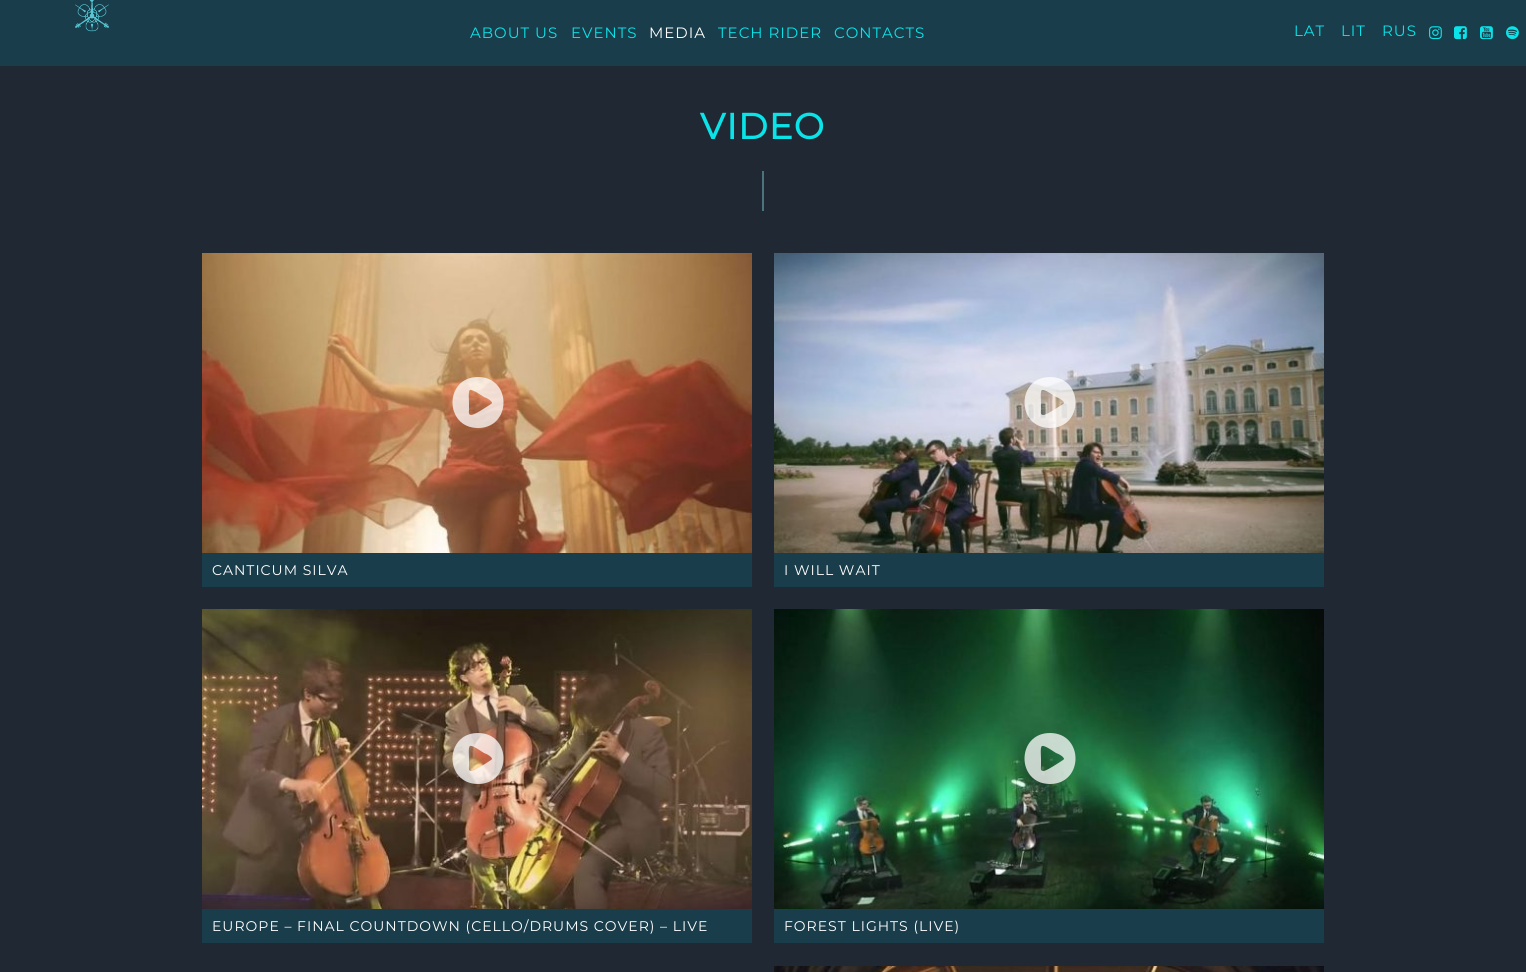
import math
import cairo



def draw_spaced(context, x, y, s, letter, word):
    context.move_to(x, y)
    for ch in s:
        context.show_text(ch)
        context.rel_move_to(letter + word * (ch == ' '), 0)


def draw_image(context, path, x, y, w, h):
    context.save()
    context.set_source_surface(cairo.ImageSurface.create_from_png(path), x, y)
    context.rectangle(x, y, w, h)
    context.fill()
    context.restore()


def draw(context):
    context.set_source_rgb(31 / 255, 40 / 255, 51 / 255)
    context.paint()
    context.set_source_rgb(26 / 255, 61 / 255, 75 / 255)
    context.rectangle(0, 0, 1526, 66)
    context.fill()
    draw_image(context, "images/1.png", 75, 0, 34, 32)
    draw_image(context, "images/2.png", 1429, 26, 13, 14)
    draw_image(context, "images/3.png", 1454, 26, 13, 14)
    draw_image(context, "images/4.png", 1480, 26, 13, 14)
    draw_image(context, "images/5.png", 1506, 26, 13, 14)
    context.set_source_rgb(75 / 255, 115 / 255, 124 / 255)
    context.rectangle(762, 171, 2, 40)
    context.fill()
    context.set_source_rgb(26 / 255, 61 / 255, 75 / 255)
    context.rectangle(202, 553, 550, 34)
    context.fill()
    draw_image(context, "images/6.png", 202, 253, 550, 300)
    context.set_source_rgba(1, 1, 1, 0.75)
    context.new_path()
    context.move_to(478, 377)
    context.curve_to(444, 377, 444, 428, 478, 428)
    context.curve_to(512, 428, 512, 377, 478, 377)
    context.close_path()
    context.move_to(491, 404)
    context.curve_to(488, 406, 473, 416, 471, 415)
    context.curve_to(468, 415, 469, 411, 469, 410)
    context.line_to(469, 403)
    context.curve_to(469, 400, 468, 391, 470, 390)
    context.curve_to(473, 389, 482, 396, 484, 397)
    context.curve_to(485, 397, 495, 402, 491, 404)
    context.close_path()
    context.fill()
    context.set_source_rgb(26 / 255, 61 / 255, 75 / 255)
    context.rectangle(774, 553, 550, 34)
    context.fill()
    draw_image(context, "images/7.png", 774, 253, 550, 300)
    context.set_source_rgba(1, 1, 1, 0.75)
    context.new_path()
    context.move_to(1050, 377)
    context.curve_to(1016, 377, 1016, 428, 1050, 428)
    context.curve_to(1084, 428, 1084, 377, 1050, 377)
    context.close_path()
    context.move_to(1063, 404)
    context.curve_to(1060, 406, 1045, 416, 1043, 415)
    context.curve_to(1040, 415, 1041, 411, 1041, 410)
    context.line_to(1041, 403)
    context.curve_to(1041, 400, 1040, 391, 1042, 390)
    context.curve_to(1045, 389, 1054, 396, 1056, 397)
    context.curve_to(1057, 397, 1067, 402, 1063, 404)
    context.close_path()
    context.fill()
    context.set_source_rgb(26 / 255, 61 / 255, 75 / 255)
    context.rectangle(202, 909, 550, 34)
    context.fill()
    draw_image(context, "images/8.png", 202, 609, 550, 300)
    context.set_source_rgba(1, 1, 1, 0.75)
    context.new_path()
    context.move_to(478, 733)
    context.curve_to(444, 733, 444, 784, 478, 784)
    context.curve_to(512, 784, 512, 733, 478, 733)
    context.close_path()
    context.move_to(491, 760)
    context.curve_to(488, 762, 473, 772, 471, 771)
    context.curve_to(468, 771, 469, 767, 469, 766)
    context.line_to(469, 759)
    context.curve_to(469, 756, 468, 747, 470, 746)
    context.curve_to(473, 745, 482, 752, 484, 753)
    context.curve_to(485, 753, 495, 758, 491, 760)
    context.close_path()
    context.fill()
    context.set_source_rgb(26 / 255, 61 / 255, 75 / 255)
    context.rectangle(774, 909, 550, 34)
    context.fill()
    draw_image(context, "images/9.png", 774, 609, 550, 300)
    context.set_source_rgba(1, 1, 1, 0.75)
    context.new_path()
    context.move_to(1050, 733)
    context.curve_to(1016, 733, 1016, 784, 1050, 784)
    context.curve_to(1084, 784, 1084, 733, 1050, 733)
    context.close_path()
    context.move_to(1063, 760)
    context.curve_to(1060, 762, 1045, 772, 1043, 771)
    context.curve_to(1040, 771, 1041, 767, 1041, 766)
    context.line_to(1041, 759)
    context.curve_to(1041, 756, 1040, 747, 1042, 746)
    context.curve_to(1045, 745, 1054, 752, 1056, 753)
    context.curve_to(1057, 753, 1067, 758, 1063, 760)
    context.close_path()
    context.fill()
    draw_image(context, "images/10.png", 774, 966, 550, 6)
    context.select_font_face("Montserrat Thin")
    context.set_font_size(15)
    context.set_source_rgb(10 / 255, 227 / 255, 232 / 255)
    draw_spaced(context, 470, 38, "ABOUT US", 1, 0)
    draw_spaced(context, 571, 38, "EVENTS", 1, 0)
    context.set_source_rgb(1, 1, 1)
    draw_spaced(context, 649, 38, "MEDIA", 1, 0)
    context.set_source_rgb(10 / 255, 227 / 255, 232 / 255)
    draw_spaced(context, 718, 38, "TECH RIDER", 1, 0)
    draw_spaced(context, 834, 38, "CONTACTS", 1, 0)
    draw_spaced(context, 1294, 36, "LAT", 1, 0)
    draw_spaced(context, 1341, 36, "LIT", 1, 0)
    draw_spaced(context, 1382, 36, "RUS", 1, 0)
    context.select_font_face("Montserrat", cairo.FontSlant.NORMAL, cairo.FontWeight.BOLD)
    context.set_font_size(36)
    draw_spaced(context, 700, 139, "VIDEO", 1, 0)
    context.select_font_face("Montserrat Thin")
    context.set_font_size(14)
    context.set_source_rgb(1, 1, 1)
    draw_spaced(context, 212, 575, "CANTICUM SILVA", 1, 0)
    draw_spaced(context, 784, 575, "I WILL WAIT", 1, 0)
    draw_spaced(context, 212, 931, "EUROPE – FINAL COUNTDOWN (CELLO/DRUMS COVER) – LIVE", 1, 0)
    draw_spaced(context, 784, 931, "FOREST LIGHTS (LIVE)", 1, 0)


surface = cairo.ImageSurface(cairo.Format.RGB24, 1526, 972)
context = cairo.Context(surface)
options = cairo.FontOptions()
options.set_hint_metrics(cairo.HintMetrics.OFF)
options.set_hint_style(cairo.HintStyle.NONE)
context.set_font_options(options)
context.set_miter_limit(4)
draw(context)
surface.write_to_png("out.png")
